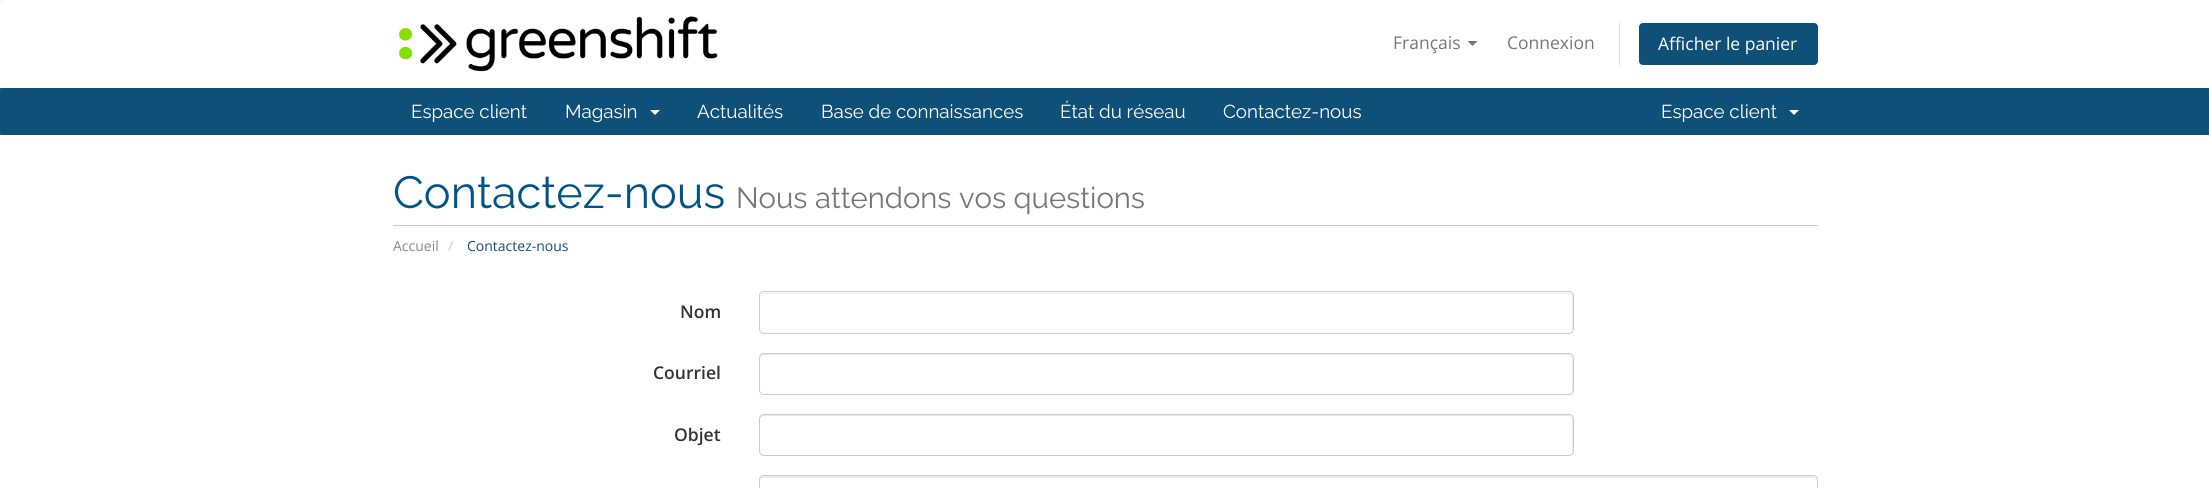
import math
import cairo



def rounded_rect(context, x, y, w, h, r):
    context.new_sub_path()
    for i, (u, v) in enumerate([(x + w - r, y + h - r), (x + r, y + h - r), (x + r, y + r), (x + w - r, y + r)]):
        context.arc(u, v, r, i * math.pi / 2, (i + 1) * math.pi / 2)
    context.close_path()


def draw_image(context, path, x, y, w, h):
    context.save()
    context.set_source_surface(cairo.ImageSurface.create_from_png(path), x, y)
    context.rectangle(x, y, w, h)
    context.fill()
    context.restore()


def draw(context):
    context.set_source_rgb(248 / 255, 248 / 255, 248 / 255)
    context.paint()
    context.set_source_rgb(1, 1, 1)
    context.new_path()
    context.move_to(6, 0)
    context.line_to(2204, 0)
    context.curve_to(2207.5, 0, 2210, 2.5, 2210, 6)
    context.line_to(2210, 88)
    context.line_to(0, 88)
    context.line_to(0, 6)
    context.curve_to(0, 2.5, 2.5, 0, 6, 0)
    context.close_path()
    context.fill()
    draw_image(context, "images/1.png", 399, 16, 319, 56)
    context.set_source_rgb(119 / 255, 119 / 255, 119 / 255)
    context.new_path()
    context.move_to(1467.5, 41)
    context.line_to(1477.5, 41)
    context.line_to(1472.5, 46)
    context.close_path()
    context.fill()
    context.set_source_rgb(221 / 255, 221 / 255, 221 / 255)
    context.rectangle(1619, 23, 1, 42)
    context.fill()
    context.set_source_rgb(14 / 255, 80 / 255, 119 / 255)
    rounded_rect(context, 1639, 23, 179, 42, 4)
    context.fill()
    context.set_source_rgb(0, 102 / 255, 135 / 255)
    context.rectangle(0, 88, 2209, 47)
    context.fill()
    context.set_source_rgb(14 / 255, 80 / 255, 119 / 255)
    rounded_rect(context, 0, 88, 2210, 47, 5)
    context.fill()
    context.set_source_rgb(1, 1, 1)
    context.new_path()
    context.move_to(650, 110)
    context.line_to(660, 110)
    context.line_to(655, 115)
    context.close_path()
    context.fill()
    context.new_path()
    context.move_to(1789, 110)
    context.line_to(1799, 110)
    context.line_to(1794, 115)
    context.close_path()
    context.fill()
    context.rectangle(0, 135, 2209, 353)
    context.fill()
    context.set_source_rgb(204 / 255, 204 / 255, 204 / 255)
    context.rectangle(393, 225, 1425, 1)
    context.fill()
    context.set_source_rgb(236 / 255, 236 / 255, 236 / 255)
    context.new_path()
    context.move_to(764, 294)
    context.line_to(1569, 294)
    context.curve_to(1571, 294, 1572, 295, 1572, 298)
    context.line_to(1572, 332)
    context.curve_to(1572, 331, 1573, 330, 1573, 329)
    context.line_to(1573, 297)
    context.curve_to(1573, 295, 1571, 293, 1569, 293)
    context.line_to(764, 293)
    context.curve_to(762, 293, 760, 295, 760, 297)
    context.line_to(760, 298)
    context.curve_to(760, 295, 762, 294, 764, 294)
    context.close_path()
    context.fill()
    rounded_rect(context, 759.5, 291.5, 814, 42, 4.5)
    context.set_source_rgb(204 / 255, 204 / 255, 204 / 255)
    context.set_line_width(1)
    context.stroke()
    context.set_source_rgb(236 / 255, 236 / 255, 236 / 255)
    context.new_path()
    context.move_to(764, 355)
    context.line_to(1569, 355)
    context.curve_to(1571, 355, 1572, 357, 1572, 359)
    context.line_to(1572, 393)
    context.curve_to(1572, 392, 1573, 391, 1573, 390)
    context.line_to(1573, 358)
    context.curve_to(1573, 356, 1571, 354, 1569, 354)
    context.line_to(764, 354)
    context.curve_to(762, 354, 760, 356, 760, 358)
    context.line_to(760, 359)
    context.curve_to(760, 357, 762, 355, 764, 355)
    context.close_path()
    context.fill()
    rounded_rect(context, 759.5, 353.5, 814, 41, 4.5)
    context.set_source_rgb(204 / 255, 204 / 255, 204 / 255)
    context.stroke()
    context.set_source_rgb(236 / 255, 236 / 255, 236 / 255)
    context.new_path()
    context.move_to(764, 416)
    context.line_to(1569, 416)
    context.curve_to(1571, 416, 1572, 418, 1572, 420)
    context.line_to(1572, 454)
    context.curve_to(1573, 453, 1573, 452, 1573, 451)
    context.line_to(1573, 419)
    context.curve_to(1573, 417, 1571, 415, 1569, 415)
    context.line_to(764, 415)
    context.curve_to(762, 415, 760, 417, 760, 419)
    context.line_to(760, 420)
    context.curve_to(760, 418, 762, 416, 764, 416)
    context.close_path()
    context.fill()
    rounded_rect(context, 759.5, 414.5, 814, 41, 4.5)
    context.set_source_rgb(204 / 255, 204 / 255, 204 / 255)
    context.stroke()
    context.set_source_rgb(236 / 255, 236 / 255, 236 / 255)
    context.new_path()
    context.move_to(764, 478)
    context.line_to(1812, 478)
    context.curve_to(1815, 478, 1816, 479, 1816, 481)
    context.curve_to(1816, 478, 1815, 476, 1812, 476)
    context.line_to(764, 476)
    context.curve_to(761, 476, 760, 478, 760, 481)
    context.curve_to(760, 479, 762, 478, 764, 478)
    context.close_path()
    context.fill()
    rounded_rect(context, 759.5, 475.5, 1058, 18, 4.5)
    context.set_source_rgb(204 / 255, 204 / 255, 204 / 255)
    context.stroke()
    context.select_font_face("Open Sans")
    context.set_font_size(17.5)
    context.set_source_rgb(119 / 255, 119 / 255, 119 / 255)
    context.move_to(1393, 49)
    context.show_text("Français")
    context.move_to(1507, 49)
    context.show_text("Connexion")
    context.set_source_rgb(1, 1, 1)
    context.move_to(1658, 50)
    context.show_text("Afficher le panier")
    context.select_font_face("Raleway")
    context.set_font_size(18.75)
    context.move_to(411, 118)
    context.show_text("Espace client")
    context.move_to(565, 118)
    context.show_text("Magasin")
    context.move_to(697, 118)
    context.show_text("Actualités")
    context.move_to(821, 118)
    context.show_text("Base de connaissances")
    context.move_to(1060, 118)
    context.show_text("État du réseau")
    context.move_to(1223, 118)
    context.show_text("Contactez-nous")
    context.move_to(1661, 118)
    context.show_text("Espace client")
    context.set_font_size(45)
    context.set_source_rgb(0, 85 / 255, 136 / 255)
    context.move_to(393, 208)
    context.show_text("Contactez-nous")
    context.set_font_size(29.25)
    context.set_source_rgb(119 / 255, 119 / 255, 119 / 255)
    context.move_to(736, 208)
    context.show_text("Nous attendons vos questions")
    context.select_font_face("Open Sans")
    context.set_font_size(14)
    context.set_source_rgb(136 / 255, 136 / 255, 136 / 255)
    context.move_to(393, 251)
    context.show_text("Accueil")
    context.set_source_rgb(204 / 255, 204 / 255, 204 / 255)
    context.move_to(448, 251)
    context.show_text("/")
    context.set_source_rgb(14 / 255, 80 / 255, 119 / 255)
    context.move_to(467, 251)
    context.show_text("Contactez-nous")
    context.select_font_face("Open Sans SemiBold")
    context.set_font_size(17.5)
    context.set_source_rgb(51 / 255, 51 / 255, 51 / 255)
    context.move_to(680, 318)
    context.show_text("Nom")
    context.move_to(653, 379)
    context.show_text("Courriel")
    context.move_to(674, 441)
    context.show_text("Objet")


surface = cairo.ImageSurface(cairo.Format.RGB24, 2209, 488)
context = cairo.Context(surface)
options = cairo.FontOptions()
options.set_hint_metrics(cairo.HintMetrics.OFF)
options.set_hint_style(cairo.HintStyle.NONE)
context.set_font_options(options)
context.set_miter_limit(4)
draw(context)
surface.write_to_png("out.png")
